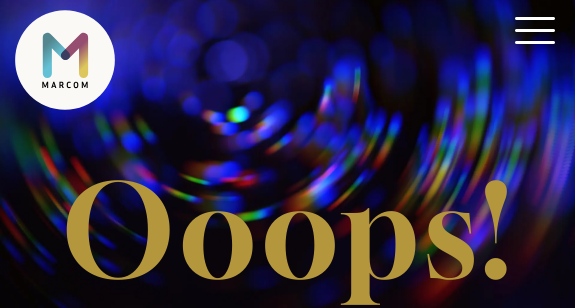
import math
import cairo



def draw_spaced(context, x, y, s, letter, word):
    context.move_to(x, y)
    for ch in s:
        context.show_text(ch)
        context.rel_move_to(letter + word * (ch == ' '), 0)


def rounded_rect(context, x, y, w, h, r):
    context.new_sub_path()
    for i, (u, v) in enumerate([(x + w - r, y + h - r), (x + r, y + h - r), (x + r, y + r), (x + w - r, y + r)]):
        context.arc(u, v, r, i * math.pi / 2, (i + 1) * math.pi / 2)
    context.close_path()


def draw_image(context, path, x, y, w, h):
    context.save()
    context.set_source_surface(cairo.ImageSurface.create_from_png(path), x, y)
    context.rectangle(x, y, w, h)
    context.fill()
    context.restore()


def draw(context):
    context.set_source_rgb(1, 1, 1)
    context.paint()
    draw_image(context, "images/2.png", 0, 0, 575, 308)
    draw_image(context, "images/1.png", 15, 10, 100, 100)
    context.set_source_rgb(1, 1, 1)
    rounded_rect(context, 515, 29, 40, 3, 1.5)
    context.fill()
    rounded_rect(context, 515, 17, 40, 3, 1.5)
    context.fill()
    rounded_rect(context, 515, 41, 40, 3, 1.5)
    context.fill()
    context.select_font_face("Gloock")
    context.set_font_size(128)
    context.set_source_rgb(180 / 255, 150 / 255, 60 / 255)
    draw_spaced(context, 62, 278, "Ooops!", 4, 0)


surface = cairo.ImageSurface(cairo.Format.RGB24, 575, 308)
context = cairo.Context(surface)
options = cairo.FontOptions()
options.set_hint_metrics(cairo.HintMetrics.OFF)
options.set_hint_style(cairo.HintStyle.NONE)
context.set_font_options(options)
context.set_miter_limit(4)
draw(context)
surface.write_to_png("out.png")
